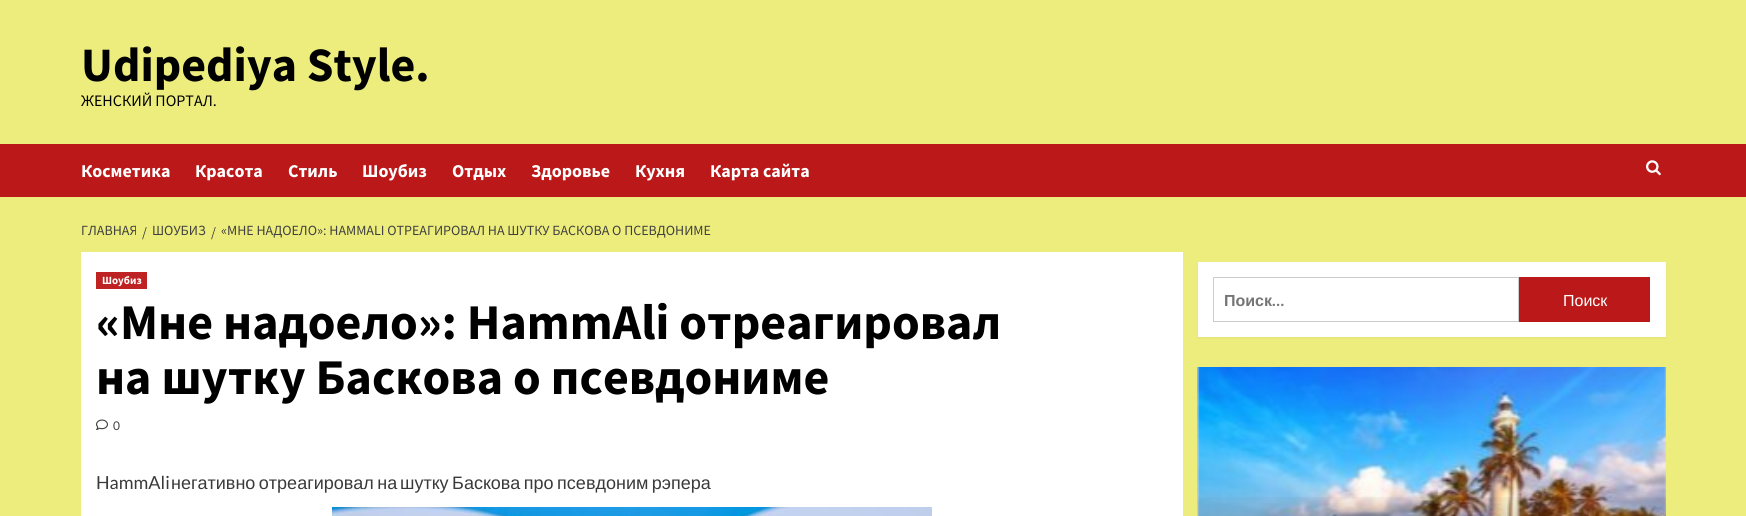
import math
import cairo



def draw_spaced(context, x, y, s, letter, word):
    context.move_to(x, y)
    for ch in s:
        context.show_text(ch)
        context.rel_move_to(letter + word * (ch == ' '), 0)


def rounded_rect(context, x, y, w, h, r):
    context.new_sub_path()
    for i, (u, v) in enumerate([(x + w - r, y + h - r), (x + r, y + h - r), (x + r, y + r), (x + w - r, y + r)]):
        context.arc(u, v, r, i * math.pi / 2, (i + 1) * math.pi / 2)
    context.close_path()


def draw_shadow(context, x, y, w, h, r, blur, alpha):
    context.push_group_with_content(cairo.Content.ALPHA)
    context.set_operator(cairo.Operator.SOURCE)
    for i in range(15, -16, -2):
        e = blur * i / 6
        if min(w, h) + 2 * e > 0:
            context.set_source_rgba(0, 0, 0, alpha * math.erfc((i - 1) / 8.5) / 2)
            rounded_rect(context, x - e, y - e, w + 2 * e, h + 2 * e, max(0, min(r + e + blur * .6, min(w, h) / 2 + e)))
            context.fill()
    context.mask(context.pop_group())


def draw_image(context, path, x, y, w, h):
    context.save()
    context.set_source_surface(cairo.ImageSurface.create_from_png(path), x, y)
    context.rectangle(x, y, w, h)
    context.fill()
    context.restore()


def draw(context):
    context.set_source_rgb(237 / 255, 237 / 255, 125 / 255)
    context.paint()
    context.set_source_rgb(187 / 255, 25 / 255, 25 / 255)
    context.rectangle(0, 144, 1746, 53)
    context.fill()
    draw_image(context, "images/1.png", 1646, 160, 15, 16)
    context.set_source_rgb(1, 1, 1)
    context.rectangle(81, 252, 1102, 264)
    context.fill()
    context.set_source_rgb(190 / 255, 34 / 255, 34 / 255)
    context.rectangle(96, 272, 51, 17)
    context.fill()
    draw_image(context, "images/2.png", 96, 419, 12, 11)
    draw_image(context, "images/3.png", 332, 507, 600, 9)
    context.set_source_rgb(0, 0, 0)
    draw_shadow(context, 1198, 263, 468, 75, 0, 1, 0.05)
    context.set_source_rgb(1, 1, 1)
    context.rectangle(1198, 262, 468, 75)
    context.fill()
    context.rectangle(1213.5, 277.5, 305, 44)
    context.set_source_rgb(204 / 255, 204 / 255, 204 / 255)
    context.set_line_width(1)
    context.stroke()
    context.set_source_rgb(187 / 255, 25 / 255, 25 / 255)
    context.rectangle(1519, 277, 131, 45)
    context.fill()
    context.set_source_rgb(216 / 255, 216 / 255, 216 / 255)
    context.rectangle(1198, 367, 468, 149)
    context.fill()
    draw_image(context, "images/4.png", 1197, 367, 469, 149)
    gradient = cairo.LinearGradient(1432, 367, 1432, 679)
    gradient.add_color_stop_rgba(0.4, 0, 0, 0, 0)
    gradient.add_color_stop_rgba(1, 0, 0, 0, 0.85)
    context.set_source(gradient)
    context.rectangle(1198, 497, 468, 19)
    context.fill()
    context.select_font_face("Source Sans Pro", cairo.FontSlant.NORMAL, cairo.FontWeight.BOLD)
    context.set_font_size(48)
    context.set_source_rgb(0, 0, 0)
    context.move_to(81, 81)
    context.show_text("Udipediya Style.")
    context.select_font_face("Source Sans Pro")
    context.set_font_size(16)
    context.move_to(81, 106)
    context.show_text("ЖЕНСКИЙ ПОРТАЛ.")
    context.select_font_face("Source Sans Pro", cairo.FontSlant.NORMAL, cairo.FontWeight.BOLD)
    context.set_font_size(18)
    context.set_source_rgb(1, 1, 1)
    context.move_to(81, 177)
    context.show_text("Косметика")
    context.move_to(195, 177)
    context.show_text("Красота")
    context.move_to(288, 177)
    context.show_text("Стиль")
    context.move_to(362, 177)
    context.show_text("Шоубиз")
    context.move_to(452, 177)
    context.show_text("Отдых")
    context.move_to(531, 177)
    context.show_text("Здоровье")
    context.move_to(635, 177)
    context.show_text("Кухня")
    context.move_to(710, 177)
    context.show_text("Карта сайта")
    context.select_font_face("Source Sans Pro")
    context.set_font_size(14)
    context.set_source_rgb(64 / 255, 64 / 255, 64 / 255)
    context.move_to(81, 235)
    context.show_text("ГЛАВНАЯ")
    context.move_to(142, 237)
    context.show_text("/")
    context.move_to(152, 235)
    context.show_text("ШОУБИЗ")
    context.move_to(211, 237)
    context.show_text("/")
    context.move_to(221, 235)
    context.show_text("«МНЕ НАДОЕЛО»: HAMMALI ОТРЕАГИРОВАЛ НА ШУТКУ БАСКОВА О ПСЕВДОНИМЕ")
    context.select_font_face("Source Sans Pro", cairo.FontSlant.NORMAL, cairo.FontWeight.BOLD)
    context.set_font_size(11)
    context.set_source_rgb(1, 1, 1)
    context.move_to(102, 284)
    context.show_text("Шоубиз")
    context.set_font_size(50)
    context.set_source_rgb(0, 0, 0)
    context.move_to(96, 339)
    context.show_text("«Мне надоело»: HammAli отреагировал")
    context.move_to(96, 394)
    context.show_text("на шутку Баскова о псевдониме")
    context.select_font_face("Lato")
    context.set_font_size(12)
    context.set_source_rgb(64 / 255, 64 / 255, 64 / 255)
    context.move_to(113, 430)
    context.show_text("0")
    context.set_font_size(18)
    context.set_source_rgb(58 / 255, 58 / 255, 58 / 255)
    context.move_to(96, 489)
    context.show_text("HammAli")
    context.select_font_face("Liberation Sans")
    draw_spaced(context, 171, 489, "негативно отреагировал на", 0, -1.5)
    draw_spaced(context, 400, 489, "шутку Баскова про псевдоним рэпера", 0, -1.5)
    context.select_font_face("Liberation Sans", cairo.FontSlant.NORMAL, cairo.FontWeight.BOLD)
    context.set_font_size(16)
    context.set_source_rgb(117 / 255, 117 / 255, 117 / 255)
    context.move_to(1224, 306)
    context.show_text("Поиск")
    context.select_font_face("Lato", cairo.FontSlant.NORMAL, cairo.FontWeight.BOLD)
    context.move_to(1272, 306)
    context.show_text("…")
    context.select_font_face("Liberation Sans")
    context.set_source_rgb(1, 1, 1)
    context.move_to(1563, 306)
    context.show_text("Поиск")


surface = cairo.ImageSurface(cairo.Format.RGB24, 1746, 516)
context = cairo.Context(surface)
options = cairo.FontOptions()
options.set_hint_metrics(cairo.HintMetrics.OFF)
options.set_hint_style(cairo.HintStyle.NONE)
context.set_font_options(options)
context.set_miter_limit(4)
draw(context)
surface.write_to_png("out.png")
